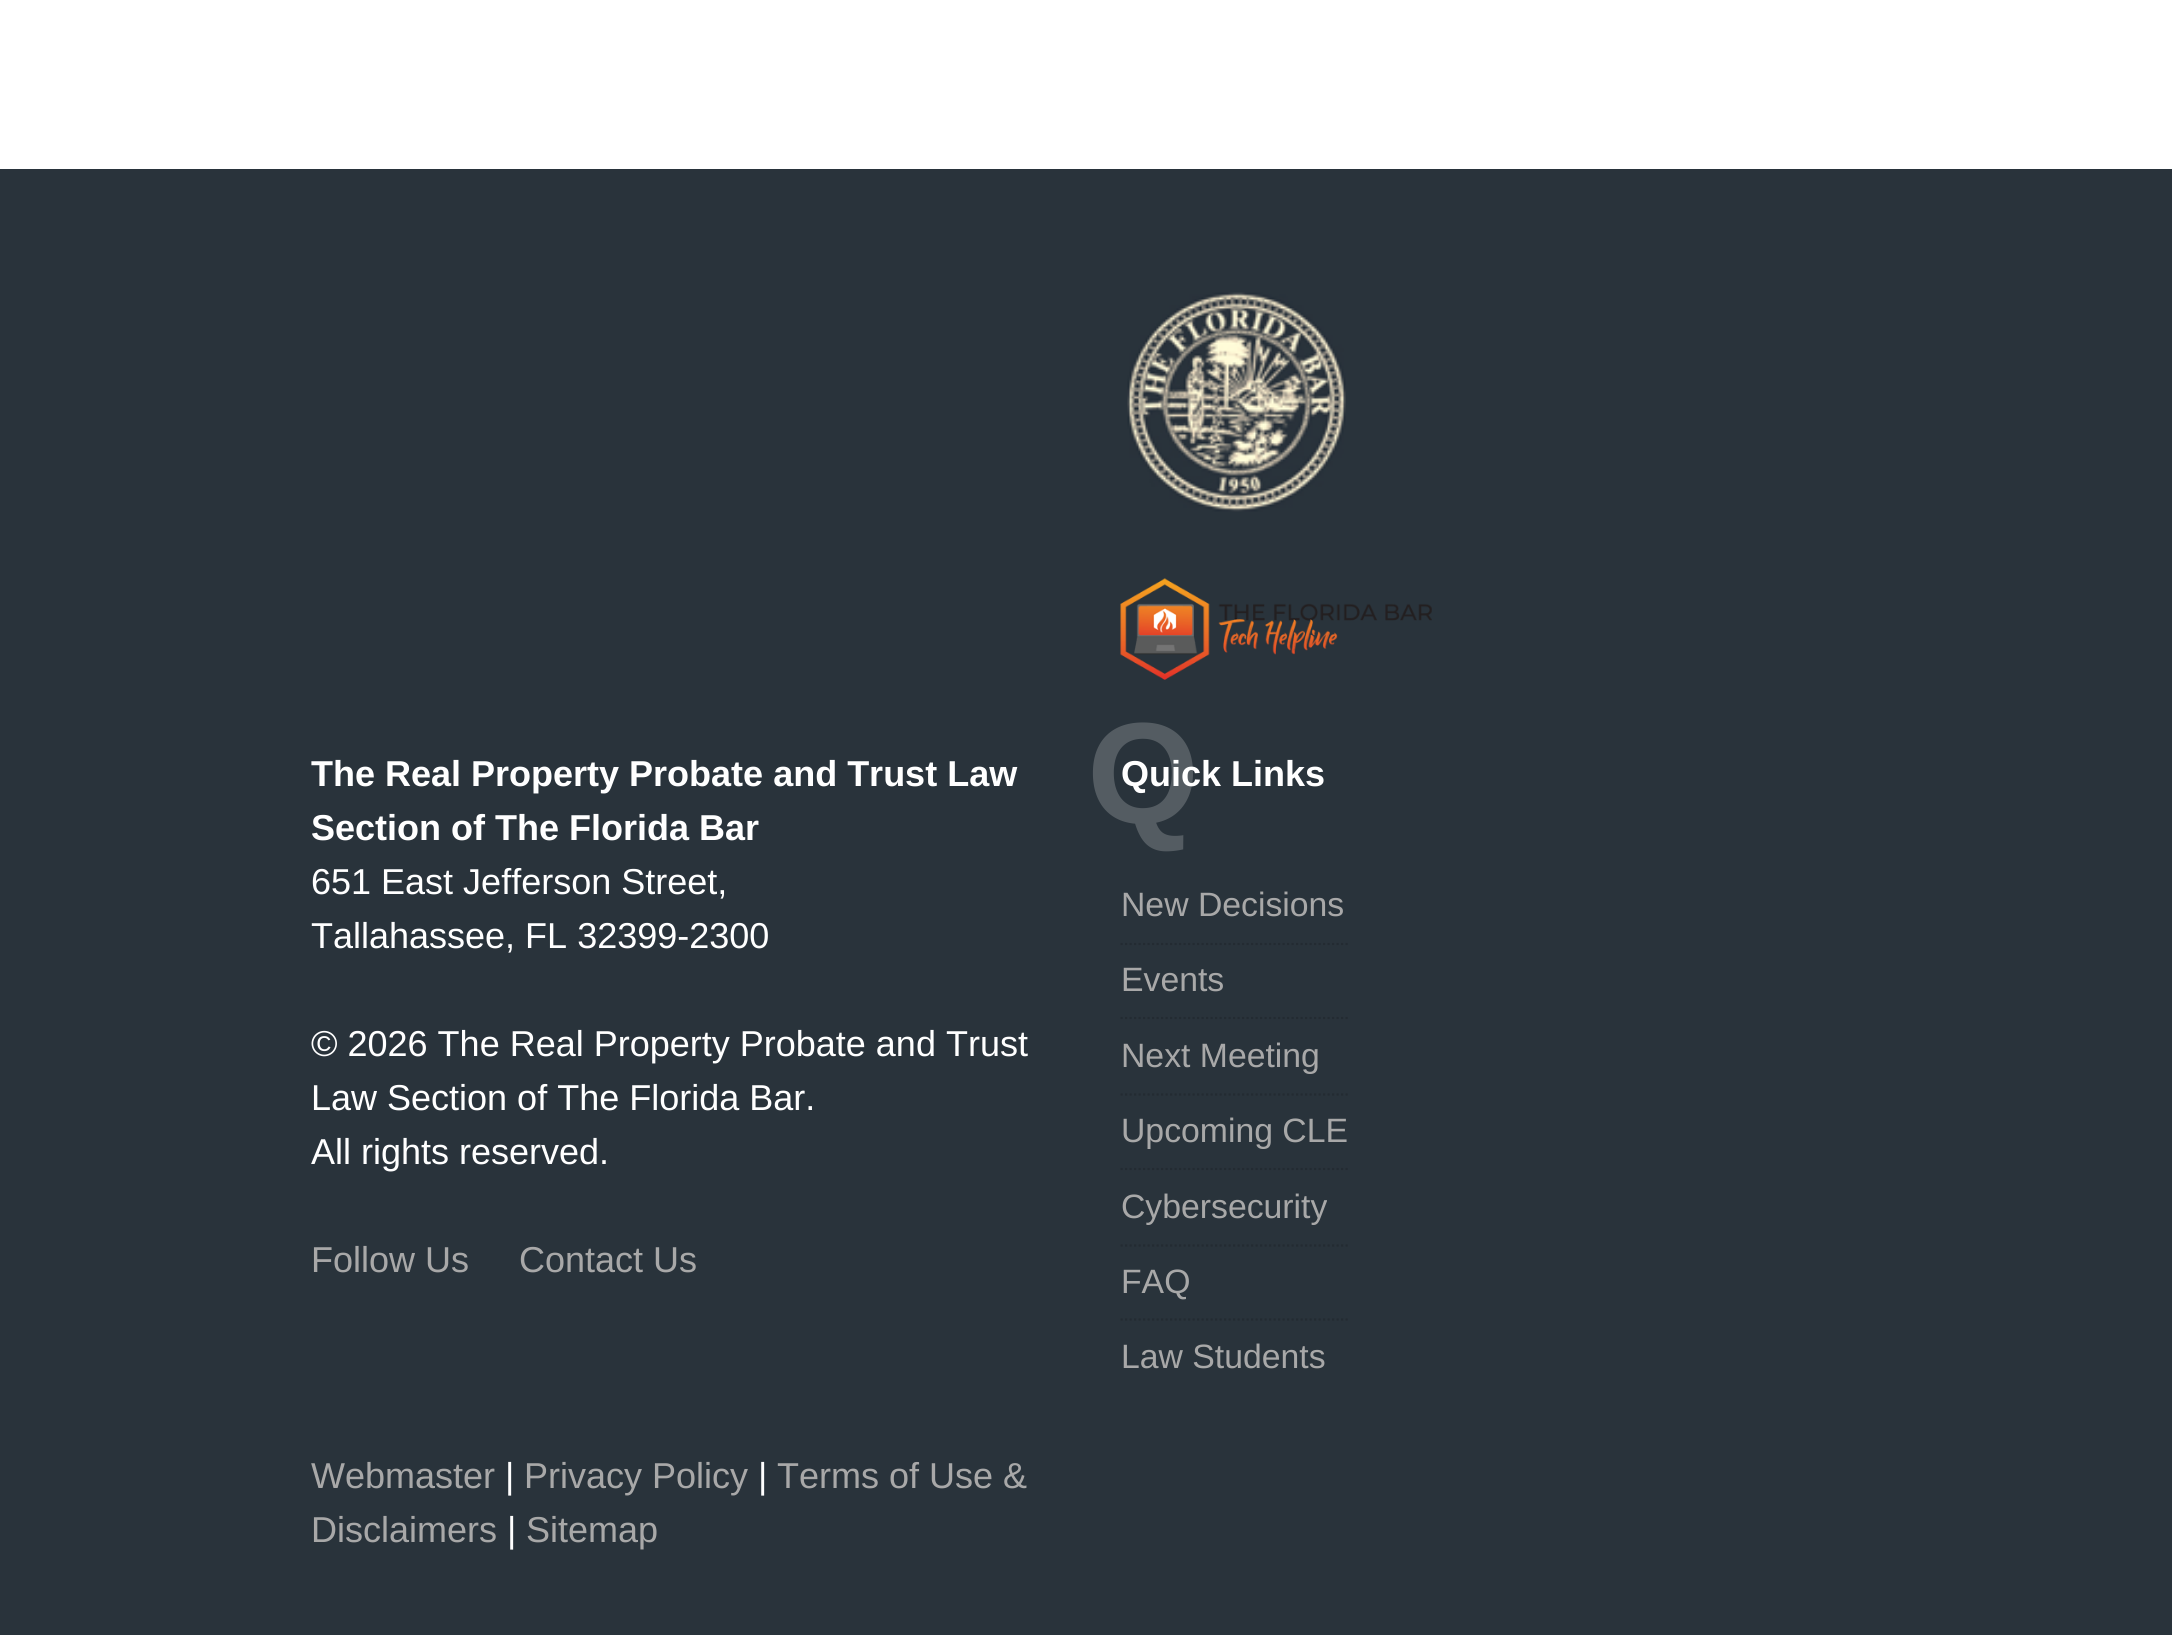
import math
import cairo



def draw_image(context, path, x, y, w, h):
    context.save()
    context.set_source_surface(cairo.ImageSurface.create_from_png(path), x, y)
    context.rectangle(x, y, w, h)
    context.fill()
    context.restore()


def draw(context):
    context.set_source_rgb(1, 1, 1)
    context.paint()
    context.set_source_rgb(41 / 255, 51 / 255, 59 / 255)
    context.rectangle(0, 169, 2172, 1466)
    context.fill()
    draw_image(context, "images/1.png", 1127, 292, 219, 220)
    draw_image(context, "images/2.png", 1120, 578, 312, 102)
    context.new_path()
    context.move_to(1120.5, 944)
    context.line_to(1348, 944)
    context.set_source_rgb(35 / 255, 43 / 255, 50 / 255)
    context.set_line_width(2.2)
    context.set_dash([2.25, 2.25])
    context.stroke()
    context.new_path()
    context.move_to(1120.5, 1018)
    context.line_to(1348, 1018)
    context.stroke()
    context.new_path()
    context.move_to(1120.5, 1094.5)
    context.line_to(1348, 1094.5)
    context.stroke()
    context.new_path()
    context.move_to(1120.5, 1169)
    context.line_to(1348, 1169)
    context.stroke()
    context.new_path()
    context.move_to(1120.5, 1245.5)
    context.line_to(1348, 1245.5)
    context.stroke()
    context.new_path()
    context.move_to(1120.5, 1319.5)
    context.line_to(1348, 1319.5)
    context.stroke()
    context.select_font_face("Arimo", cairo.FontSlant.NORMAL, cairo.FontWeight.BOLD)
    context.set_font_size(36)
    context.set_source_rgb(1, 1, 1)
    context.move_to(311, 786)
    context.show_text("The Real Property Probate and Trust Law")
    context.move_to(311, 840)
    context.show_text("Section of The Florida Bar")
    context.select_font_face("Arimo")
    context.move_to(311, 894)
    context.show_text("651 East Jefferson Street,")
    context.move_to(311, 948)
    context.show_text("Tallahassee, FL 32399-2300")
    context.move_to(311, 1056)
    context.show_text("© 2026 The Real Property Probate and Trust")
    context.move_to(311, 1110)
    context.show_text("Law Section of The Florida Bar.")
    context.move_to(311, 1164)
    context.show_text("All rights reserved.")
    context.set_source_rgb(168 / 255, 168 / 255, 168 / 255)
    context.move_to(311, 1272)
    context.show_text("Follow Us")
    context.move_to(519, 1272)
    context.show_text("Contact Us")
    context.move_to(311, 1488)
    context.show_text("Webmaster")
    context.set_source_rgb(1, 1, 1)
    context.move_to(505, 1488)
    context.show_text("|")
    context.set_source_rgb(168 / 255, 168 / 255, 168 / 255)
    context.move_to(524, 1488)
    context.show_text("Privacy Policy")
    context.set_source_rgb(1, 1, 1)
    context.move_to(758, 1488)
    context.show_text("|")
    context.set_source_rgb(168 / 255, 168 / 255, 168 / 255)
    context.move_to(777, 1488)
    context.show_text("Terms of Use &")
    context.move_to(311, 1542)
    context.show_text("Disclaimers")
    context.set_source_rgb(1, 1, 1)
    context.move_to(507, 1542)
    context.show_text("|")
    context.set_source_rgb(168 / 255, 168 / 255, 168 / 255)
    context.move_to(526, 1542)
    context.show_text("Sitemap")
    context.select_font_face("Arimo", cairo.FontSlant.NORMAL, cairo.FontWeight.BOLD)
    context.set_font_size(144)
    context.set_source_rgb(84 / 255, 92 / 255, 98 / 255)
    context.move_to(1087, 823)
    context.show_text("Q")
    context.set_font_size(36)
    context.set_source_rgb(1, 1, 1)
    context.move_to(1121, 786)
    context.show_text("Quick Links")
    context.select_font_face("Arimo")
    context.set_font_size(33.75)
    context.set_source_rgb(168 / 255, 168 / 255, 168 / 255)
    context.move_to(1121, 916)
    context.show_text("New Decisions")
    context.move_to(1121, 991)
    context.show_text("Events")
    context.move_to(1121, 1067)
    context.show_text("Next Meeting")
    context.move_to(1121, 1142)
    context.show_text("Upcoming CLE")
    context.move_to(1121, 1218)
    context.show_text("Cybersecurity")
    context.move_to(1121, 1293)
    context.show_text("FAQ")
    context.move_to(1121, 1368)
    context.show_text("Law Students")


surface = cairo.ImageSurface(cairo.Format.RGB24, 2172, 1635)
context = cairo.Context(surface)
options = cairo.FontOptions()
options.set_hint_metrics(cairo.HintMetrics.OFF)
options.set_hint_style(cairo.HintStyle.NONE)
context.set_font_options(options)
context.set_miter_limit(4)
draw(context)
surface.write_to_png("out.png")
